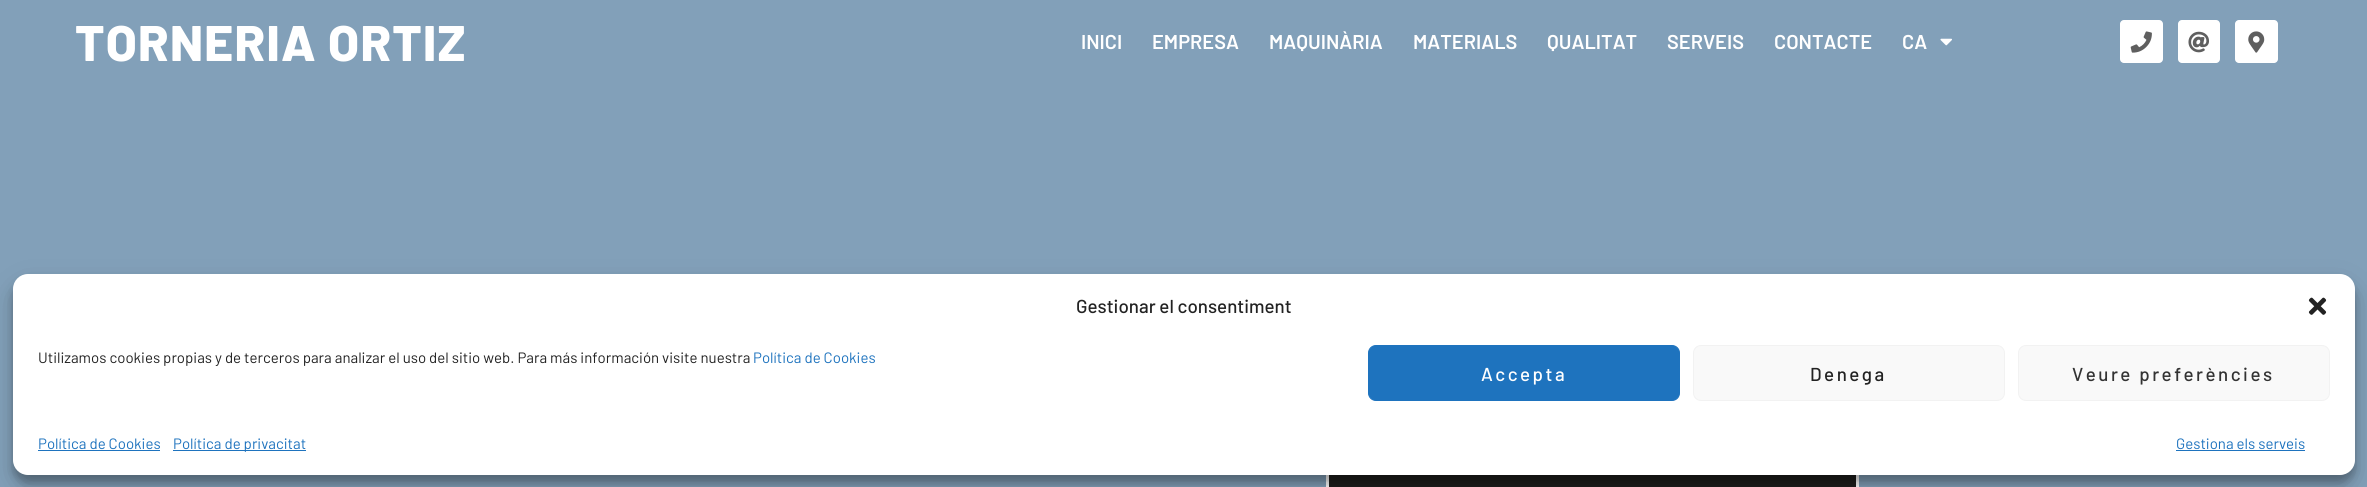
import math
import cairo



def draw_spaced(context, x, y, s, letter, word):
    context.move_to(x, y)
    for ch in s:
        context.show_text(ch)
        context.rel_move_to(letter + word * (ch == ' '), 0)


def rounded_rect(context, x, y, w, h, r):
    context.new_sub_path()
    for i, (u, v) in enumerate([(x + w - r, y + h - r), (x + r, y + h - r), (x + r, y + r), (x + w - r, y + r)]):
        context.arc(u, v, r, i * math.pi / 2, (i + 1) * math.pi / 2)
    context.close_path()


def draw_shadow(context, x, y, w, h, r, blur, alpha):
    context.push_group_with_content(cairo.Content.ALPHA)
    context.set_operator(cairo.Operator.SOURCE)
    for i in range(15, -16, -2):
        e = blur * i / 6
        if min(w, h) + 2 * e > 0:
            context.set_source_rgba(0, 0, 0, alpha * math.erfc((i - 1) / 8.5) / 2)
            rounded_rect(context, x - e, y - e, w + 2 * e, h + 2 * e, max(0, min(r + e + blur * .6, min(w, h) / 2 + e)))
            context.fill()
    context.mask(context.pop_group())


def draw_image(context, path, x, y, w, h):
    context.save()
    context.set_source_surface(cairo.ImageSurface.create_from_png(path), x, y)
    context.rectangle(x, y, w, h)
    context.fill()
    context.restore()


def draw(context):
    context.set_source_rgb(130 / 255, 160 / 255, 185 / 255)
    context.paint()
    draw_image(context, "images/1.png", 1940, 38, 12, 8)
    context.set_source_rgb(1, 1, 1)
    rounded_rect(context, 2120, 20, 43, 43, 4)
    context.fill()
    draw_image(context, "images/2.png", 2130, 31, 22, 22)
    rounded_rect(context, 2178, 20, 42, 43, 4)
    context.fill()
    draw_image(context, "images/3.png", 2188, 31, 21, 22)
    rounded_rect(context, 2235, 20, 43, 43, 4)
    context.fill()
    draw_image(context, "images/4.png", 2248, 31, 17, 22)
    context.set_source_rgb(29 / 255, 29 / 255, 27 / 255)
    context.rectangle(1329, 475, 527, 12)
    context.fill()
    context.rectangle(1327.5, 472.5, 530, 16)
    context.set_source_rgb(1, 1, 1)
    context.set_line_width(3)
    context.stroke()
    context.set_source_rgb(0, 0, 0)
    draw_shadow(context, 13, 281, 2342, 202, 15, 4, 0.23)
    draw_shadow(context, 13, 286, 2342, 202, 15, 12.5, 0.19)
    context.set_source_rgb(1, 1, 1)
    rounded_rect(context, 13, 274, 2342, 201, 15)
    context.fill()
    draw_image(context, "images/5.png", 2308, 297, 19, 18)
    context.set_source_rgb(30 / 255, 115 / 255, 190 / 255)
    rounded_rect(context, 1368.5, 345.5, 311, 55, 7.5)
    context.fill_preserve()
    context.set_line_width(1)
    context.stroke()
    context.set_source_rgb(249 / 255, 249 / 255, 249 / 255)
    rounded_rect(context, 1693.5, 345.5, 311, 55, 7.5)
    context.fill_preserve()
    context.set_source_rgb(242 / 255, 242 / 255, 242 / 255)
    context.stroke()
    context.set_source_rgb(249 / 255, 249 / 255, 249 / 255)
    rounded_rect(context, 2018.5, 345.5, 311, 55, 7.5)
    context.fill_preserve()
    context.set_source_rgb(242 / 255, 242 / 255, 242 / 255)
    context.stroke()
    context.set_source_rgb(30 / 255, 115 / 255, 190 / 255)
    context.rectangle(38, 450, 122, 1)
    context.fill()
    context.rectangle(173, 450, 133, 1)
    context.fill()
    context.rectangle(2176, 450, 129, 1)
    context.fill()
    context.select_font_face("Barlow ExtraBold")
    context.set_font_size(50)
    context.set_source_rgb(1, 1, 1)
    draw_spaced(context, 75, 61, "TORNERIA ORTIZ", 1.25, 0)
    context.select_font_face("Barlow SemiBold")
    context.set_font_size(20)
    context.move_to(1081, 49)
    context.show_text("INICI")
    context.move_to(1152, 49)
    context.show_text("EMPRESA")
    context.move_to(1269, 49)
    context.show_text("MAQUINÀRIA")
    context.move_to(1413, 49)
    context.show_text("MATERIALS")
    context.move_to(1547, 49)
    context.show_text("QUALITAT")
    context.move_to(1667, 49)
    context.show_text("SERVEIS")
    context.move_to(1774, 49)
    context.show_text("CONTACTE")
    context.move_to(1902, 49)
    context.show_text("CA")
    context.select_font_face("Barlow Medium")
    context.set_font_size(18.75)
    context.set_source_rgb(34 / 255, 34 / 255, 34 / 255)
    context.move_to(1076, 313)
    context.show_text("Gestionar el consentiment")
    context.select_font_face("Barlow")
    context.set_font_size(15)
    context.move_to(38, 363)
    context.show_text("Utilizamos cookies propias y de terceros para analizar el uso del sitio web. Para más información visite nuestra")
    context.set_source_rgb(30 / 255, 115 / 255, 190 / 255)
    context.move_to(753, 363)
    context.show_text("Política de Cookies")
    context.select_font_face("Barlow Medium")
    context.set_font_size(18.75)
    context.set_source_rgb(1, 1, 1)
    draw_spaced(context, 1481, 381, "Accepta", 2.5, 0)
    context.set_source_rgb(34 / 255, 34 / 255, 34 / 255)
    draw_spaced(context, 1810, 381, "Denega", 2.5, 0)
    context.set_source_rgb(51 / 255, 51 / 255, 51 / 255)
    draw_spaced(context, 2072, 381, "Veure preferències", 2.5, 0)
    context.select_font_face("Barlow")
    context.set_font_size(15)
    context.set_source_rgb(30 / 255, 115 / 255, 190 / 255)
    context.move_to(38, 449)
    context.show_text("Política de Cookies")
    context.move_to(173, 449)
    context.show_text("Política de privacitat")
    context.move_to(2176, 449)
    context.show_text("Gestiona els serveis")


surface = cairo.ImageSurface(cairo.Format.RGB24, 2367, 487)
context = cairo.Context(surface)
options = cairo.FontOptions()
options.set_hint_metrics(cairo.HintMetrics.OFF)
options.set_hint_style(cairo.HintStyle.NONE)
context.set_font_options(options)
context.set_miter_limit(4)
draw(context)
surface.write_to_png("out.png")
